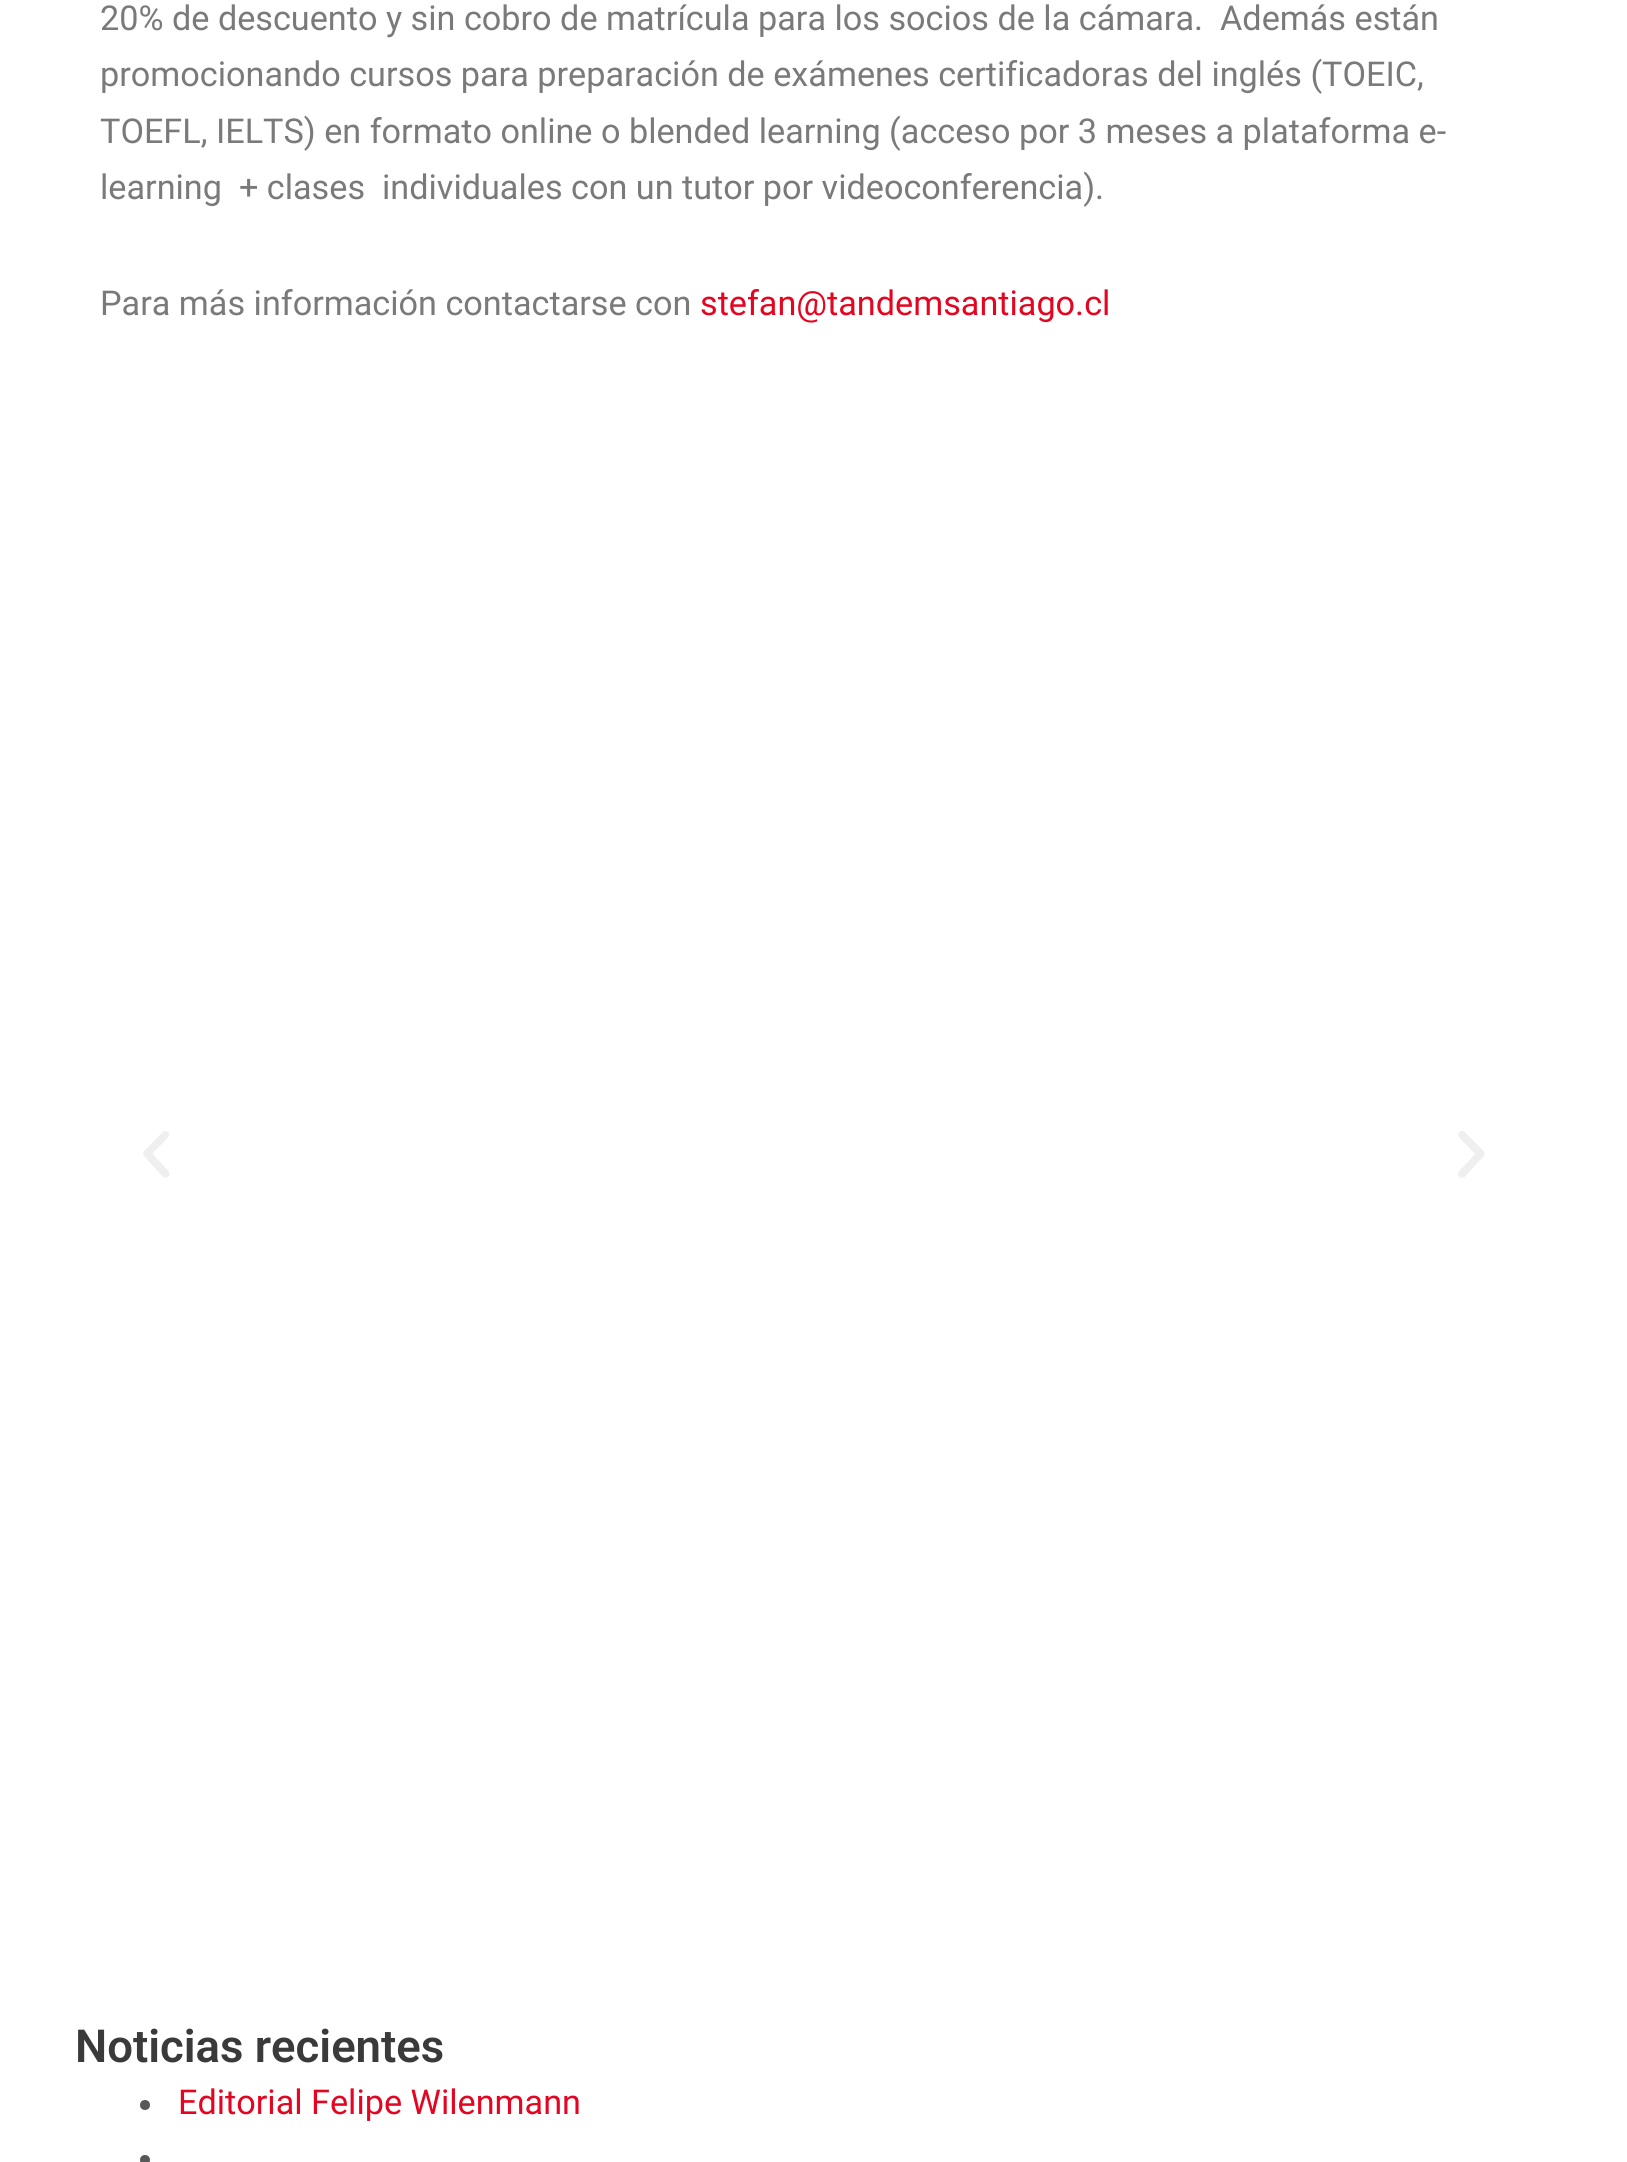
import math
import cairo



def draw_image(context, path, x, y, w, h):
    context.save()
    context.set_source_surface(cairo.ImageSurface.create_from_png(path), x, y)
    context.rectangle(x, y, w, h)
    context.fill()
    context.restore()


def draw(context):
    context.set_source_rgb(1, 1, 1)
    context.paint()
    draw_image(context, "images/1.png", 143, 1131, 27, 47)
    draw_image(context, "images/2.png", 1458, 1131, 27, 47)
    context.set_source_rgb(88 / 255, 88 / 255, 88 / 255)
    context.arc(145, 2105, 5, 0, 2 * math.pi)
    context.fill()
    context.arc(145, 2160, 5, 0, 2 * math.pi)
    context.fill()
    context.select_font_face("Roboto")
    context.set_font_size(34.2)
    context.set_source_rgb(122 / 255, 122 / 255, 122 / 255)
    context.move_to(100, 30)
    context.show_text("20% de descuento y sin cobro de matrícula para los socios de la cámara.  Además están")
    context.move_to(100, 86)
    context.show_text("promocionando cursos para preparación de exámenes certificadoras del inglés (TOEIC,")
    context.move_to(100, 143)
    context.show_text("TOEFL, IELTS) en formato online o blended learning (acceso por 3 meses a plataforma e-")
    context.move_to(100, 199)
    context.show_text("learning  + clases  individuales con un tutor por videoconferencia).")
    context.move_to(100, 315)
    context.show_text("Para más información contactarse con")
    context.set_source_rgb(228 / 255, 5 / 255, 33 / 255)
    context.move_to(700, 315)
    context.show_text("stefan@tandemsantiago.cl")
    context.select_font_face("Roboto SemiBold")
    context.set_font_size(45.5)
    context.set_source_rgb(58 / 255, 58 / 255, 58 / 255)
    context.move_to(75, 2062)
    context.show_text("Noticias recientes")
    context.select_font_face("Roboto")
    context.set_font_size(34.2)
    context.set_source_rgb(228 / 255, 5 / 255, 33 / 255)
    context.move_to(178, 2114)
    context.show_text("Editorial Felipe Wilenmann")


surface = cairo.ImageSurface(cairo.Format.RGB24, 1627, 2162)
context = cairo.Context(surface)
options = cairo.FontOptions()
options.set_hint_metrics(cairo.HintMetrics.OFF)
options.set_hint_style(cairo.HintStyle.NONE)
context.set_font_options(options)
context.set_miter_limit(4)
draw(context)
surface.write_to_png("out.png")
